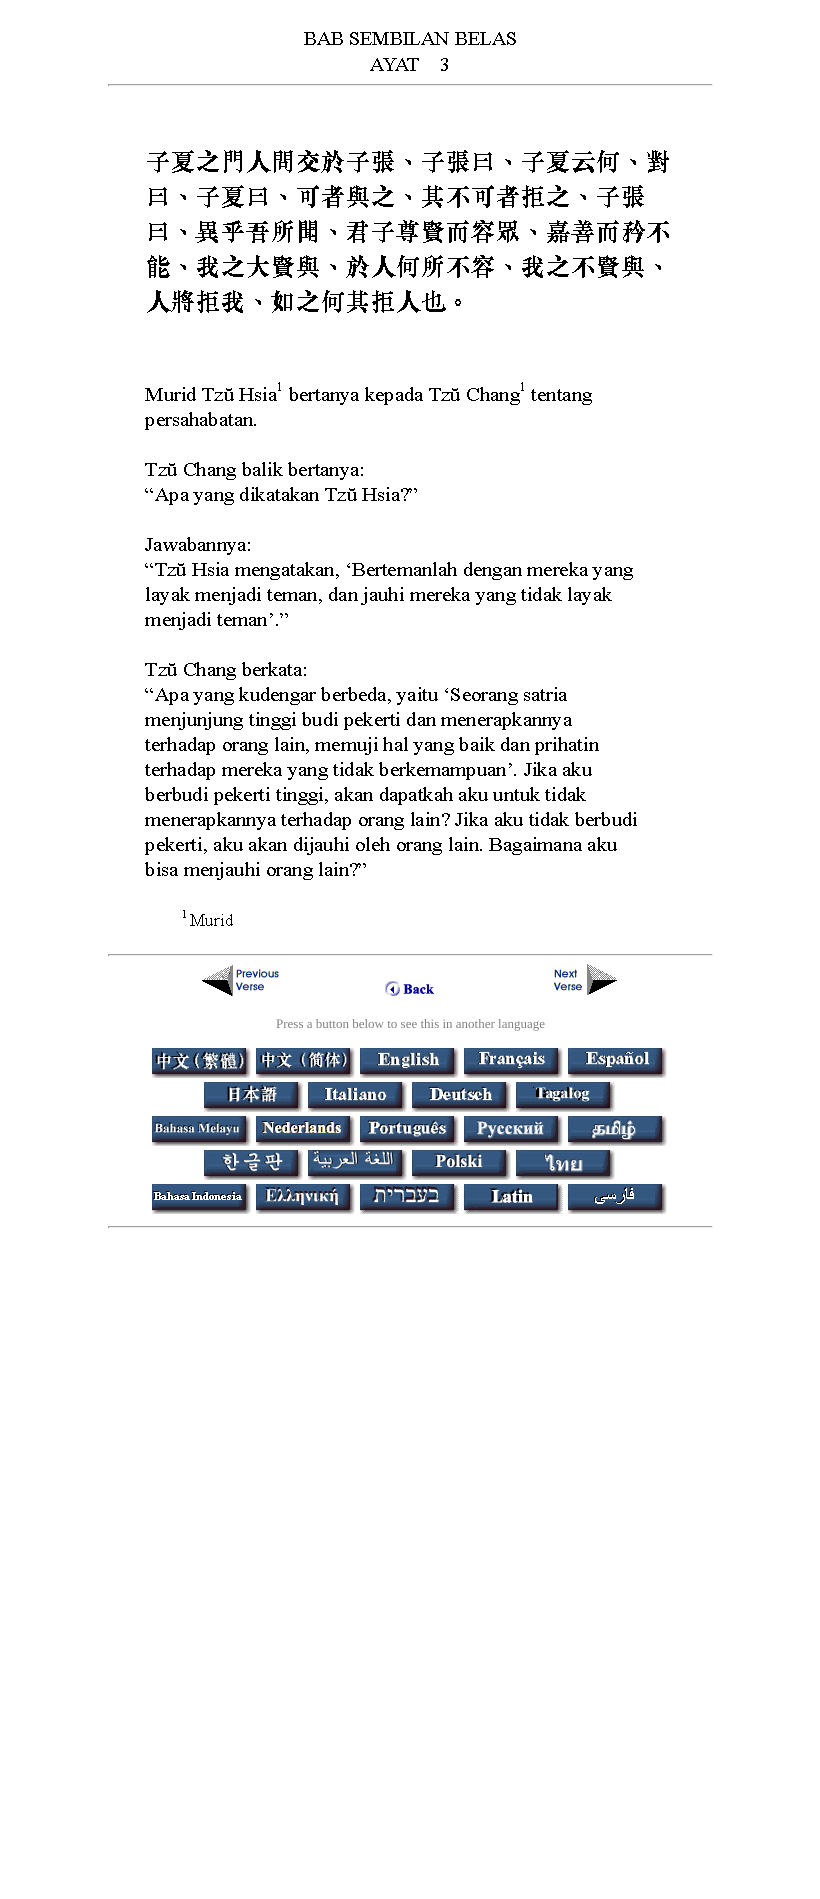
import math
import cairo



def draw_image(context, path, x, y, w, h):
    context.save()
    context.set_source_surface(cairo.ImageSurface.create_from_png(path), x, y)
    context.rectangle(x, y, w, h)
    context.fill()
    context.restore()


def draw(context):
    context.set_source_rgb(1, 1, 1)
    context.paint()
    draw_image(context, "images/1.png", 304, 32, 212, 13)
    draw_image(context, "images/2.png", 370, 58, 78, 13)
    context.set_source_rgb(159 / 255, 159 / 255, 159 / 255)
    context.rectangle(108, 84, 605, 1)
    context.fill()
    context.set_source_rgb(238 / 255, 238 / 255, 238 / 255)
    context.rectangle(712, 84, 1, 2)
    context.fill()
    context.rectangle(108, 85, 605, 1)
    context.fill()
    context.set_source_rgb(159 / 255, 159 / 255, 159 / 255)
    context.rectangle(108, 84, 1, 2)
    context.fill()
    draw_image(context, "images/3.png", 147, 150, 522, 163)
    draw_image(context, "images/4.png", 145, 382, 492, 544)
    context.rectangle(108, 954, 605, 1)
    context.fill()
    context.set_source_rgb(238 / 255, 238 / 255, 238 / 255)
    context.rectangle(712, 954, 1, 2)
    context.fill()
    context.rectangle(108, 955, 605, 1)
    context.fill()
    context.set_source_rgb(159 / 255, 159 / 255, 159 / 255)
    context.rectangle(108, 954, 1, 2)
    context.fill()
    draw_image(context, "images/5.png", 202, 965, 77, 31)
    draw_image(context, "images/6.png", 385, 981, 49, 15)
    draw_image(context, "images/7.png", 554, 964, 63, 31)
    draw_image(context, "images/8.png", 152, 1048, 99, 30)
    draw_image(context, "images/9.png", 256, 1048, 99, 30)
    draw_image(context, "images/10.png", 360, 1048, 99, 30)
    draw_image(context, "images/11.png", 464, 1048, 99, 30)
    draw_image(context, "images/12.png", 568, 1048, 99, 30)
    draw_image(context, "images/13.png", 204, 1082, 99, 30)
    draw_image(context, "images/14.png", 308, 1082, 99, 30)
    draw_image(context, "images/15.png", 412, 1082, 99, 30)
    draw_image(context, "images/16.png", 516, 1082, 99, 30)
    draw_image(context, "images/17.png", 152, 1116, 99, 30)
    draw_image(context, "images/18.png", 256, 1116, 99, 30)
    draw_image(context, "images/19.png", 360, 1116, 99, 30)
    draw_image(context, "images/20.png", 464, 1116, 99, 30)
    draw_image(context, "images/21.png", 568, 1116, 99, 30)
    draw_image(context, "images/22.png", 204, 1150, 99, 30)
    draw_image(context, "images/23.png", 308, 1150, 99, 30)
    draw_image(context, "images/24.png", 412, 1150, 99, 30)
    draw_image(context, "images/25.png", 516, 1150, 99, 30)
    draw_image(context, "images/26.png", 152, 1184, 99, 30)
    draw_image(context, "images/27.png", 256, 1184, 99, 30)
    draw_image(context, "images/28.png", 360, 1184, 99, 30)
    draw_image(context, "images/29.png", 464, 1184, 99, 30)
    draw_image(context, "images/30.png", 568, 1184, 99, 30)
    context.rectangle(108, 1226, 605, 1)
    context.fill()
    context.set_source_rgb(238 / 255, 238 / 255, 238 / 255)
    context.rectangle(712, 1226, 1, 2)
    context.fill()
    context.rectangle(108, 1227, 605, 1)
    context.fill()
    context.set_source_rgb(159 / 255, 159 / 255, 159 / 255)
    context.rectangle(108, 1226, 1, 2)
    context.fill()
    context.select_font_face("Liberation Serif")
    context.set_font_size(13)
    context.set_source_rgb(128 / 255, 128 / 255, 128 / 255)
    context.move_to(276, 1028)
    context.show_text("Press a button below to see this in another language")


surface = cairo.ImageSurface(cairo.Format.RGB24, 820, 1899)
context = cairo.Context(surface)
options = cairo.FontOptions()
options.set_hint_metrics(cairo.HintMetrics.OFF)
options.set_hint_style(cairo.HintStyle.NONE)
context.set_font_options(options)
context.set_miter_limit(4)
draw(context)
surface.write_to_png("out.png")
